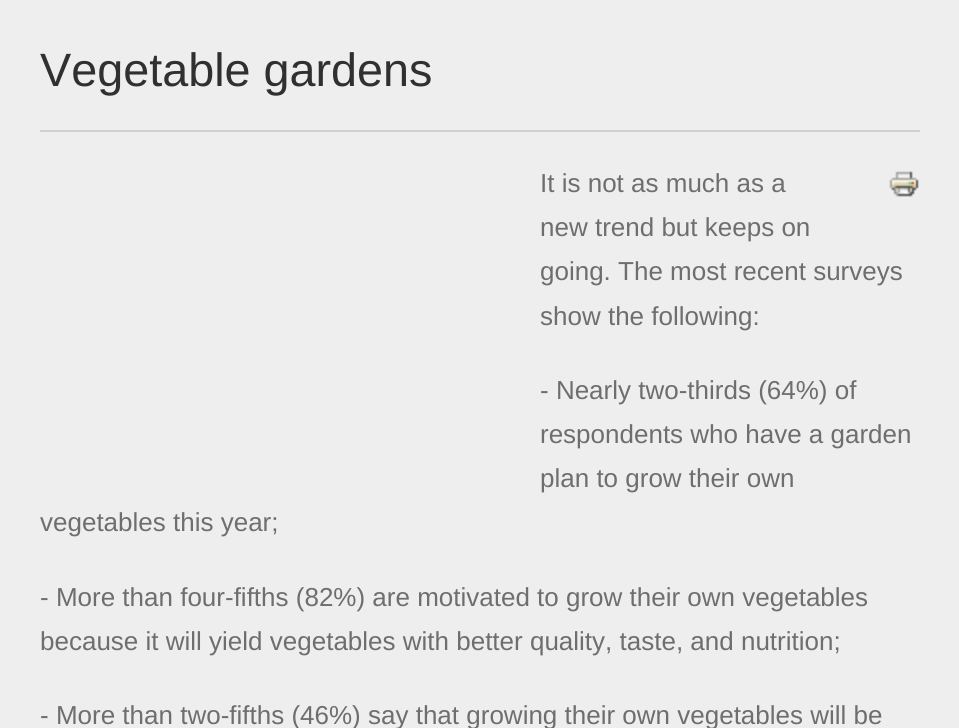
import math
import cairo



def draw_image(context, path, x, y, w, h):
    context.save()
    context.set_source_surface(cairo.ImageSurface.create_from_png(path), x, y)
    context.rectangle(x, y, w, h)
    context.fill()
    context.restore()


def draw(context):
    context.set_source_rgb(238 / 255, 238 / 255, 238 / 255)
    context.paint()
    context.set_source_rgb(209 / 255, 209 / 255, 209 / 255)
    context.rectangle(40, 130, 880, 2)
    context.fill()
    draw_image(context, "images/1.png", 889, 171, 30, 26)
    context.select_font_face("Liberation Sans")
    context.set_font_size(46.75)
    context.set_source_rgb(48 / 255, 48 / 255, 48 / 255)
    context.move_to(40, 86)
    context.show_text("Vegetable gardens")
    context.set_font_size(26)
    context.set_source_rgb(110 / 255, 110 / 255, 110 / 255)
    context.move_to(540, 192)
    context.show_text("It is not as much as a")
    context.move_to(540, 236)
    context.show_text("new trend but keeps on")
    context.move_to(540, 280)
    context.show_text("going. The most recent surveys")
    context.move_to(540, 325)
    context.show_text("show the following:")
    context.move_to(540, 399)
    context.show_text("- Nearly two-thirds (64%) of")
    context.move_to(540, 443)
    context.show_text("respondents who have a garden")
    context.move_to(540, 487)
    context.show_text("plan to grow their own")
    context.move_to(40, 531)
    context.show_text("vegetables this year;")
    context.move_to(40, 606)
    context.show_text("- More than four-fifths (82%) are motivated to grow their own vegetables")
    context.move_to(40, 650)
    context.show_text("because it will yield vegetables with better quality, taste, and nutrition;")
    context.move_to(40, 724)
    context.show_text("- More than two-fifths (46%) say that growing their own vegetables will be")


surface = cairo.ImageSurface(cairo.Format.RGB24, 959, 728)
context = cairo.Context(surface)
options = cairo.FontOptions()
options.set_hint_metrics(cairo.HintMetrics.OFF)
options.set_hint_style(cairo.HintStyle.NONE)
context.set_font_options(options)
context.set_miter_limit(4)
draw(context)
surface.write_to_png("out.png")
